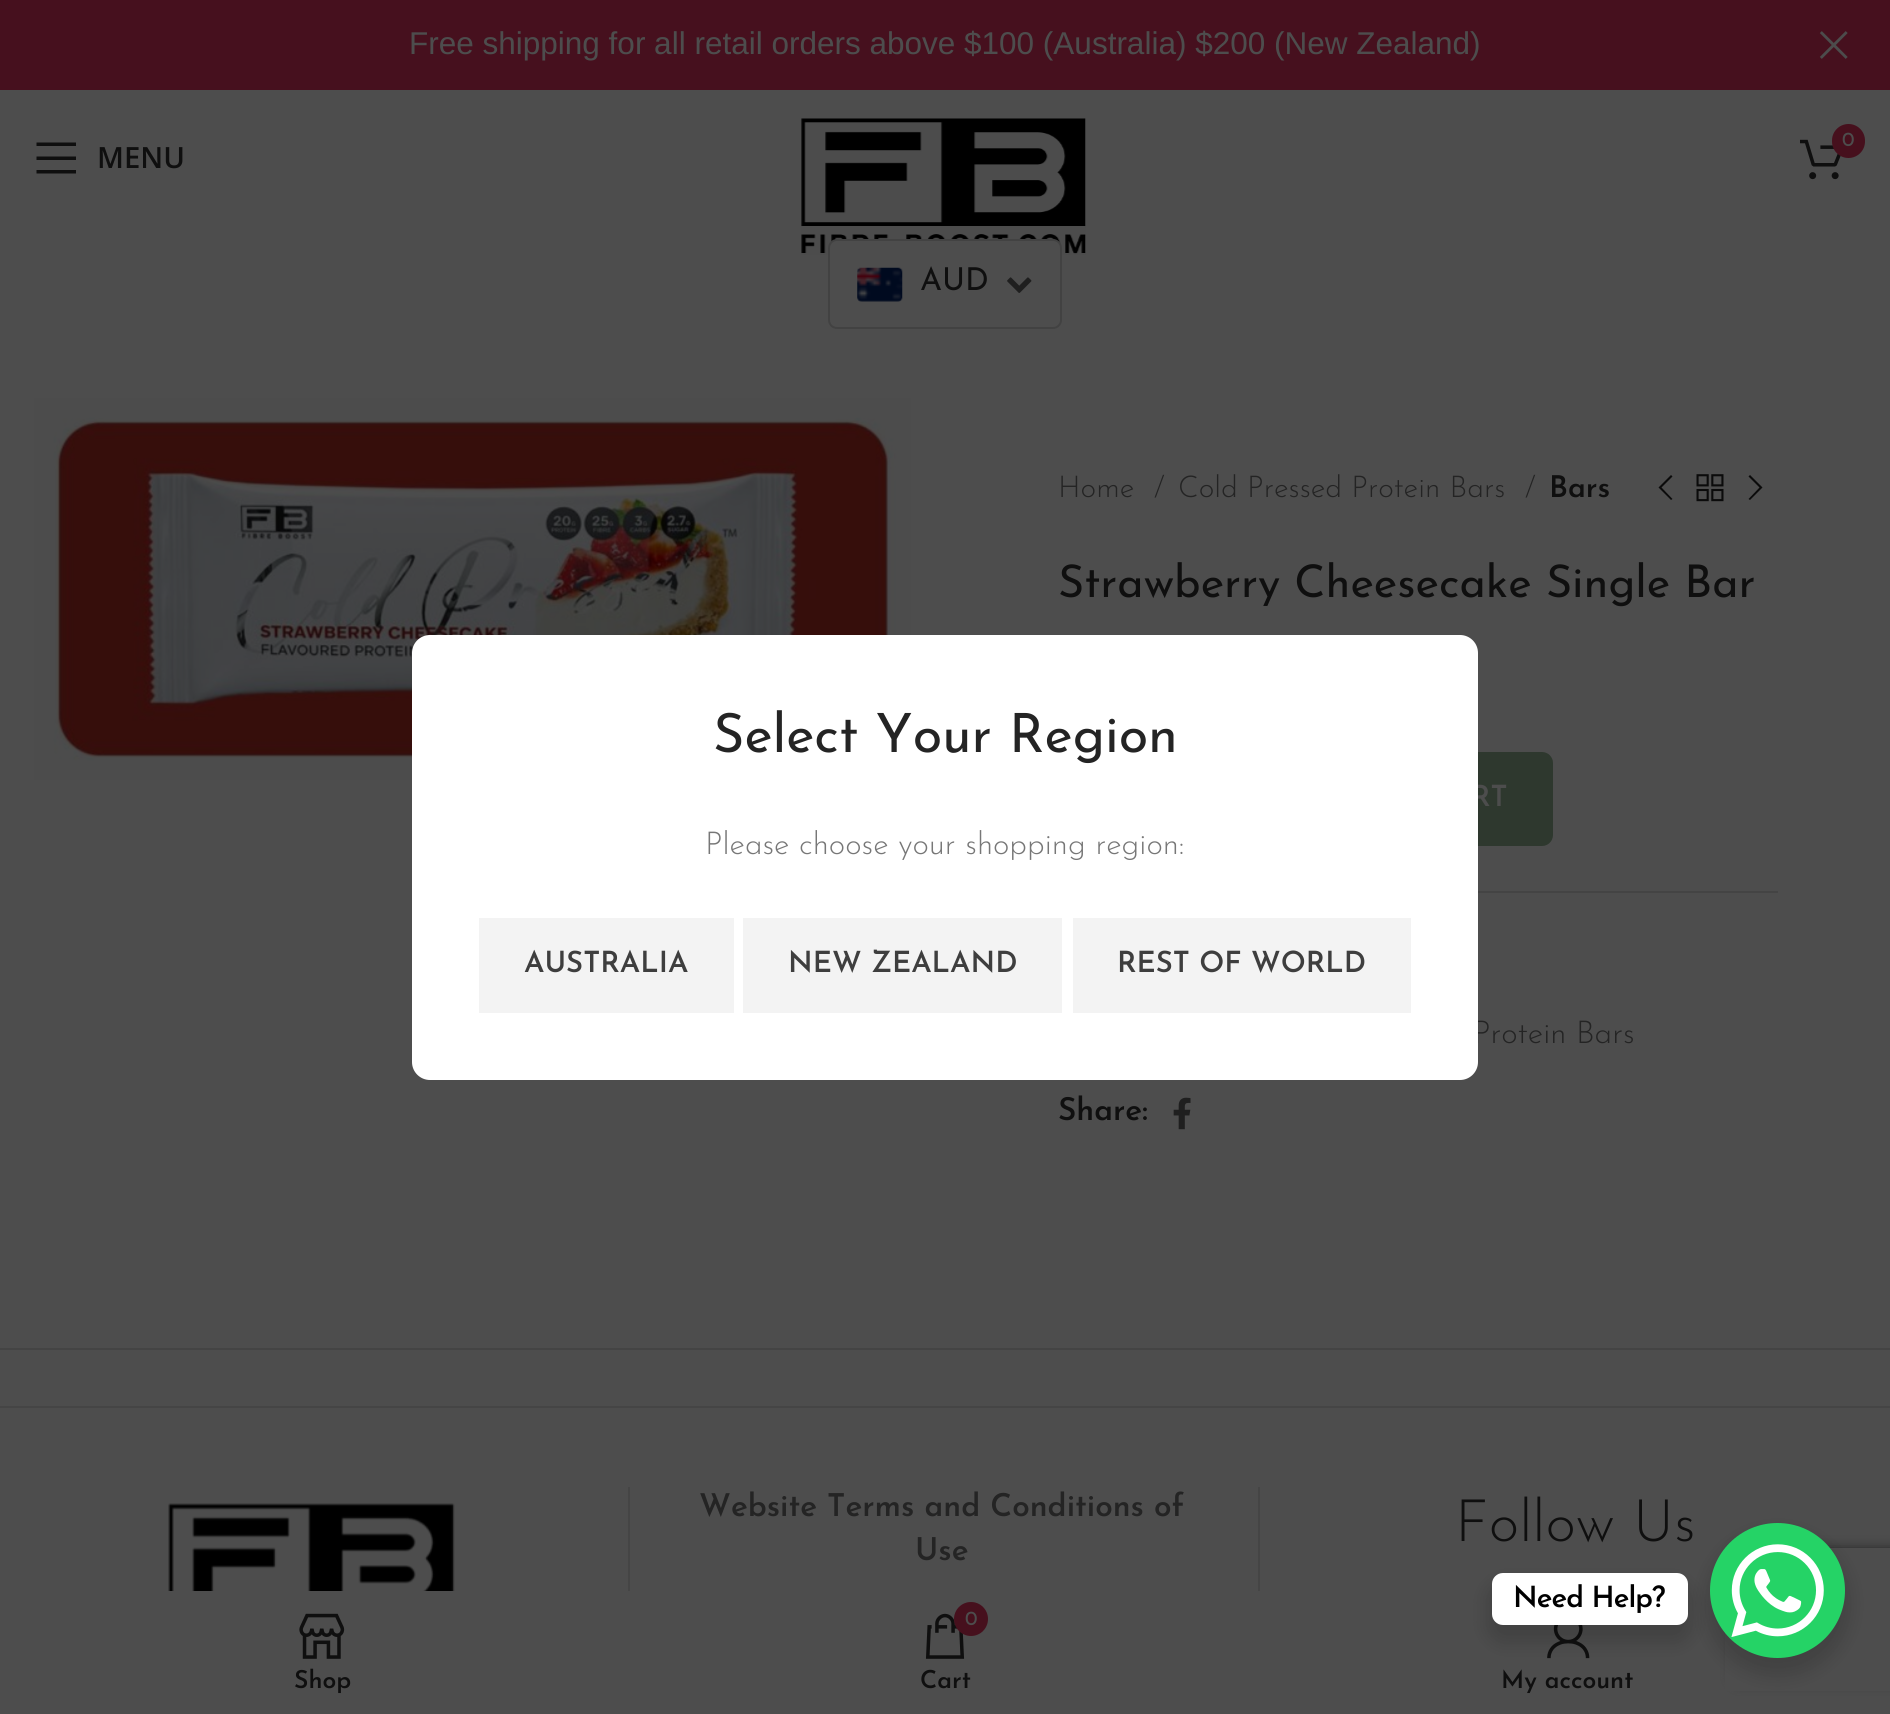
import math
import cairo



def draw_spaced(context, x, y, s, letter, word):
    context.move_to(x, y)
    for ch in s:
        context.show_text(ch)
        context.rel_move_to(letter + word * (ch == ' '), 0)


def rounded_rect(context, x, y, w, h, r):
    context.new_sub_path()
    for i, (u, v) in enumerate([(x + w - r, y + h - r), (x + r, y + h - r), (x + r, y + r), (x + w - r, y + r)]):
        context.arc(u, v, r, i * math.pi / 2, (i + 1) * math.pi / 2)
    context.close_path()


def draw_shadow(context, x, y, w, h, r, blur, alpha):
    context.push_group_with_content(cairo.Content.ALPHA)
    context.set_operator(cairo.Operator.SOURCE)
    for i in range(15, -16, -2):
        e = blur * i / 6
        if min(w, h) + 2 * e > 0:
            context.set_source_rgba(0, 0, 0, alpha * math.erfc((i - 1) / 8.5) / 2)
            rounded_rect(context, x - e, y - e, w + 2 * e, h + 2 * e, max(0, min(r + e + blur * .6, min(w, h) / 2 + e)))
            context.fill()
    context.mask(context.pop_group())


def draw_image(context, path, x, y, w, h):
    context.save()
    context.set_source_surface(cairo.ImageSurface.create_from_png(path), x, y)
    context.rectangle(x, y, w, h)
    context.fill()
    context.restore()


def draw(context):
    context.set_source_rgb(77 / 255, 77 / 255, 77 / 255)
    context.paint()
    context.set_source_rgb(70 / 255, 16 / 255, 30 / 255)
    context.rectangle(0, 0, 1890, 90)
    context.fill()
    draw_image(context, "images/1.png", 1819, 31, 29, 28)
    draw_image(context, "images/2.png", 801, 118, 285, 137)
    draw_image(context, "images/3.png", 1800, 139, 41, 41)
    context.set_source_rgb(70 / 255, 16 / 255, 29 / 255)
    rounded_rect(context, 1832, 124, 33, 34, 16.5)
    context.fill()
    context.set_source_rgb(15 / 255, 15 / 255, 15 / 255)
    context.new_path()
    context.move_to(36.5, 146)
    context.line_to(76, 146)
    context.line_to(76, 142.5)
    context.line_to(36.5, 142.5)
    context.close_path()
    context.move_to(36.5, 160)
    context.line_to(76, 160)
    context.line_to(76, 156.5)
    context.line_to(36.5, 156.5)
    context.close_path()
    context.move_to(36.5, 173.5)
    context.line_to(76, 173.5)
    context.line_to(76, 170)
    context.line_to(36.5, 170)
    context.close_path()
    context.fill()
    context.set_source_rgb(77 / 255, 77 / 255, 77 / 255)
    rounded_rect(context, 829, 240, 232, 88, 8)
    context.fill_preserve()
    context.set_source_rgb(66 / 255, 66 / 255, 66 / 255)
    context.stroke()
    draw_image(context, "images/4.png", 857, 267, 46, 35)
    draw_image(context, "images/5.png", 1007, 277, 25, 16)
    draw_image(context, "images/6.png", 34, 398, 877, 382)
    context.set_source_rgb(11 / 255, 11 / 255, 11 / 255)
    context.new_path()
    context.move_to(1672.5, 476.5)
    context.line_to(1671, 475)
    context.line_to(1658.5, 487.5)
    context.line_to(1671, 500)
    context.line_to(1672.5, 499)
    context.line_to(1661.5, 487.5)
    context.close_path()
    context.fill()
    draw_image(context, "images/7.png", 1696, 474, 28, 28)
    context.new_path()
    context.move_to(1748.5, 476.5)
    context.line_to(1759.5, 487.5)
    context.line_to(1748.5, 499)
    context.line_to(1750, 500)
    context.line_to(1762.5, 487.5)
    context.line_to(1750, 475)
    context.close_path()
    context.fill()
    context.set_source_rgb(46 / 255, 56 / 255, 46 / 255)
    rounded_rect(context, 1260, 752, 293, 94, 11)
    context.fill()
    context.set_source_rgb(68 / 255, 68 / 255, 68 / 255)
    context.rectangle(1478, 891, 300, 2)
    context.fill()
    draw_image(context, "images/8.png", 1173, 1097, 18, 33)
    context.rectangle(0, 1348, 1890, 2)
    context.fill()
    context.set_source_rgb(69 / 255, 69 / 255, 69 / 255)
    context.rectangle(0, 1406, 1890, 2)
    context.fill()
    context.rectangle(628, 1487, 2, 104)
    context.fill()
    draw_image(context, "images/9.png", 168, 1503, 287, 88)
    context.rectangle(1258, 1487, 2, 104)
    context.fill()
    context.save()
    context.set_fill_rule(cairo.FillRule.EVEN_ODD)
    context.new_path()
    context.move_to(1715, 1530)
    context.line_to(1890, 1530)
    context.line_to(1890, 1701)
    context.line_to(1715, 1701)
    context.close_path()
    context.move_to(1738, 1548)
    context.line_to(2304, 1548)
    context.curve_to(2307, 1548, 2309, 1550, 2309, 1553)
    context.line_to(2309, 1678)
    context.curve_to(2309, 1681, 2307, 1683, 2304, 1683)
    context.line_to(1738, 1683)
    context.curve_to(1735, 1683, 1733, 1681, 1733, 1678)
    context.line_to(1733, 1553)
    context.curve_to(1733, 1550, 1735, 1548, 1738, 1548)
    context.close_path()
    context.clip()
    context.set_source_rgb(38 / 255, 38 / 255, 38 / 255)
    draw_shadow(context, 1733, 1548, 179, 135, 5, 5.5, 1)
    context.restore()
    context.set_source_rgb(77 / 255, 77 / 255, 77 / 255)
    context.rectangle(1725, 1591, 165, 100)
    context.fill()
    context.set_source_rgb(0, 0, 0)
    draw_shadow(context, 1706, 1532, 144, 144, 72, 9, 0.15)
    context.set_source_rgb(37 / 255, 211 / 255, 102 / 255)
    context.arc(1777.5, 1590.5, 67.5, 0, 2 * math.pi)
    context.fill()
    draw_image(context, "images/13.png", 1547, 1625, 43, 34)
    context.set_source_rgb(0, 0, 0)
    draw_shadow(context, 1487, 1582, 205, 61, 16, 9, 0.15)
    context.set_source_rgb(1, 1, 1)
    rounded_rect(context, 1492, 1573, 196, 52, 11)
    context.fill()
    draw_image(context, "images/10.png", 1731, 1544, 93, 93)
    draw_image(context, "images/11.png", 299, 1613, 46, 46)
    draw_image(context, "images/12.png", 925, 1613, 40, 46)
    context.set_source_rgb(70 / 255, 16 / 255, 29 / 255)
    context.arc(971, 1619, 17, 0, 2 * math.pi)
    context.fill()
    context.select_font_face("Liberation Sans")
    context.set_font_size(31.5)
    context.set_source_rgb(77 / 255, 77 / 255, 77 / 255)
    context.move_to(409, 54)
    context.show_text("Free shipping for all retail orders above $100 (Australia) $200 (New Zealand)")
    context.select_font_face("Josefin Sans")
    context.set_font_size(20)
    context.move_to(1842, 146)
    context.show_text("0")
    context.select_font_face("Open Sans SemiBold")
    context.set_font_size(29.25)
    context.set_source_rgb(15 / 255, 15 / 255, 15 / 255)
    context.move_to(97, 168)
    context.show_text("MENU")
    context.select_font_face("Josefin Sans")
    context.set_font_size(31.5)
    context.move_to(920, 290)
    context.show_text("AUD")
    context.select_font_face("Josefin Sans Light")
    context.set_font_size(30)
    context.set_source_rgb(36 / 255, 36 / 255, 36 / 255)
    context.move_to(1058, 497)
    context.show_text("Home")
    context.move_to(1154, 497)
    context.show_text("/")
    context.move_to(1178, 497)
    context.show_text("Cold Pressed Protein Bars")
    context.move_to(1525, 497)
    context.show_text("/")
    context.select_font_face("Josefin Sans SemiBold")
    context.set_source_rgb(15 / 255, 15 / 255, 15 / 255)
    context.move_to(1549, 497)
    context.show_text("Bars")
    context.select_font_face("Josefin Sans")
    context.set_font_size(45)
    context.move_to(1058, 597)
    context.show_text("Strawberry Cheesecake Single Bar")
    context.select_font_face("Josefin Sans SemiBold")
    context.set_font_size(29.25)
    context.set_source_rgb(77 / 255, 77 / 255, 77 / 255)
    context.move_to(1471, 806)
    context.show_text("RT")
    context.select_font_face("Josefin Sans Light")
    context.set_font_size(31.5)
    context.set_source_rgb(36 / 255, 36 / 255, 36 / 255)
    context.move_to(1473, 1043)
    context.show_text("Protein Bars")
    context.select_font_face("Josefin Sans SemiBold")
    context.set_source_rgb(15 / 255, 15 / 255, 15 / 255)
    context.move_to(1058, 1120)
    context.show_text("Share:")
    context.set_source_rgb(36 / 255, 36 / 255, 36 / 255)
    context.move_to(699, 1516)
    context.show_text("Website Terms and Conditions of")
    context.move_to(915, 1560)
    context.show_text("Use")
    context.select_font_face("Josefin Sans Light")
    context.set_font_size(58.5)
    context.set_source_rgb(15 / 255, 15 / 255, 15 / 255)
    context.move_to(1455, 1541)
    context.show_text("Follow Us")
    context.set_source_rgb(1, 1, 1)
    rounded_rect(context, 412, 635, 1066, 445, 18)
    context.fill()
    context.select_font_face("Josefin Sans")
    context.set_font_size(54)
    context.set_source_rgb(36 / 255, 36 / 255, 36 / 255)
    context.move_to(713, 752)
    context.show_text("Select Your Region")
    context.select_font_face("Josefin Sans Light")
    context.set_font_size(31.5)
    context.set_source_rgb(119 / 255, 119 / 255, 119 / 255)
    context.move_to(705, 854)
    context.show_text("Please choose your shopping region:")
    context.set_source_rgb(243 / 255, 243 / 255, 243 / 255)
    context.rectangle(479, 918, 255, 95)
    context.fill()
    context.select_font_face("Josefin Sans SemiBold")
    context.set_font_size(29.25)
    context.set_source_rgb(62 / 255, 62 / 255, 62 / 255)
    context.move_to(524, 972)
    context.show_text("AUSTRALIA")
    context.set_source_rgb(243 / 255, 243 / 255, 243 / 255)
    context.rectangle(743, 918, 319, 95)
    context.fill()
    context.set_source_rgb(62 / 255, 62 / 255, 62 / 255)
    context.move_to(788, 972)
    context.show_text("NEW ZEALAND")
    context.set_source_rgb(243 / 255, 243 / 255, 243 / 255)
    context.rectangle(1073, 918, 338, 95)
    context.fill()
    context.set_source_rgb(62 / 255, 62 / 255, 62 / 255)
    context.move_to(1117, 972)
    context.show_text("REST OF WORLD")
    context.set_source_rgb(0, 0, 0)
    draw_spaced(context, 1513, 1607, "Need Help?", -0.9, 0)
    context.set_font_size(24.75)
    context.set_source_rgb(15 / 255, 15 / 255, 15 / 255)
    context.move_to(294, 1688)
    context.show_text("Shop")
    context.select_font_face("Josefin Sans")
    context.set_font_size(20)
    context.set_source_rgb(77 / 255, 77 / 255, 77 / 255)
    context.move_to(965, 1625)
    context.show_text("0")
    context.select_font_face("Josefin Sans SemiBold")
    context.set_font_size(24.75)
    context.set_source_rgb(15 / 255, 15 / 255, 15 / 255)
    context.move_to(920, 1688)
    context.show_text("Cart")
    context.move_to(1501, 1688)
    context.show_text("My account")


surface = cairo.ImageSurface(cairo.Format.RGB24, 1890, 1714)
context = cairo.Context(surface)
options = cairo.FontOptions()
options.set_hint_metrics(cairo.HintMetrics.OFF)
options.set_hint_style(cairo.HintStyle.NONE)
context.set_font_options(options)
context.set_miter_limit(4)
draw(context)
surface.write_to_png("out.png")
